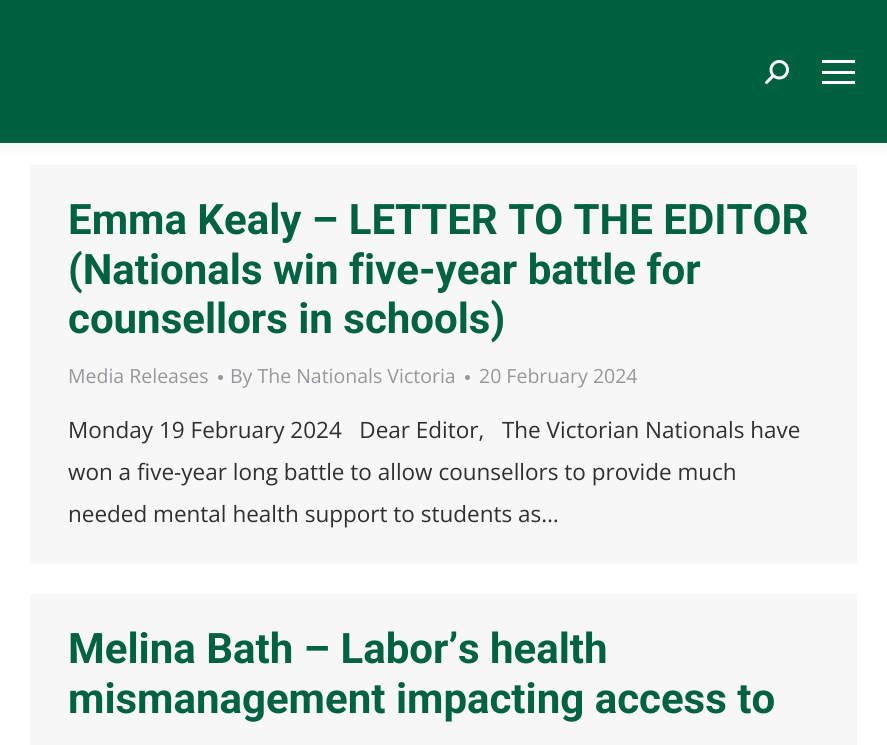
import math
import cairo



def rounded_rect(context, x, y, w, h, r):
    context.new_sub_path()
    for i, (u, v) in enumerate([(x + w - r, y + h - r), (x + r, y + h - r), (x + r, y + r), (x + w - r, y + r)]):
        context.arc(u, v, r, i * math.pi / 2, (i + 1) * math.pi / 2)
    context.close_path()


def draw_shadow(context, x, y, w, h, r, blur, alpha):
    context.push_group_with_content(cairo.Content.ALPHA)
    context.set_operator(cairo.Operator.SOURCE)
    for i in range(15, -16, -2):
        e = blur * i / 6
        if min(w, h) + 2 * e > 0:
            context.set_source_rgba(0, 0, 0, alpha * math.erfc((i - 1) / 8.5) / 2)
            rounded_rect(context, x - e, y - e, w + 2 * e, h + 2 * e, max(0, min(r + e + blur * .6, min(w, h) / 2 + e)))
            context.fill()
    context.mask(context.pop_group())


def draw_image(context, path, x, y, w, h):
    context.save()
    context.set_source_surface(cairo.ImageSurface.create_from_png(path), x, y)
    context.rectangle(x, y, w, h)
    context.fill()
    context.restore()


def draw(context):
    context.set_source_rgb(1, 1, 1)
    context.paint()
    context.set_source_rgb(247 / 255, 247 / 255, 247 / 255)
    context.rectangle(30, 165, 827, 399)
    context.fill()
    context.set_source_rgb(0, 0, 0)
    draw_shadow(context, -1, -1, 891, 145, 0, 11, 0.07)
    context.set_source_rgb(0, 97 / 255, 65 / 255)
    context.rectangle(0, 0, 887, 143)
    context.fill()
    draw_image(context, "images/1.png", 765, 60, 24, 24)
    context.set_source_rgb(1, 1, 1)
    context.rectangle(822, 60, 33, 3)
    context.fill()
    context.rectangle(822, 71, 33, 3)
    context.fill()
    context.rectangle(822, 81, 33, 3)
    context.fill()
    context.set_source_rgb(149 / 255, 151 / 255, 155 / 255)
    context.arc(220.5, 377.5, 2.5, 0, 2 * math.pi)
    context.fill()
    context.arc(467.5, 377.5, 2.5, 0, 2 * math.pi)
    context.fill()
    context.set_source_rgb(247 / 255, 247 / 255, 247 / 255)
    context.rectangle(30, 594, 827, 151)
    context.fill()
    context.select_font_face("Roboto", cairo.FontSlant.NORMAL, cairo.FontWeight.BOLD)
    context.set_font_size(42)
    context.set_source_rgb(0, 98 / 255, 65 / 255)
    context.move_to(68, 234)
    context.show_text("Emma Kealy – LETTER TO THE EDITOR")
    context.move_to(68, 284)
    context.show_text("(Nationals win five-year battle for")
    context.move_to(68, 333)
    context.show_text("counsellors in schools)")
    context.select_font_face("Open Sans")
    context.set_font_size(19.5)
    context.set_source_rgb(149 / 255, 151 / 255, 155 / 255)
    context.move_to(68, 383)
    context.show_text("Media Releases")
    context.move_to(230, 383)
    context.show_text("By The Nationals Victoria")
    context.move_to(479, 383)
    context.show_text("20 February 2024")
    context.set_font_size(22.5)
    context.set_source_rgb(48 / 255, 48 / 255, 48 / 255)
    context.move_to(68, 438)
    context.show_text("Monday 19 February 2024   Dear Editor,   The Victorian Nationals have")
    context.move_to(68, 480)
    context.show_text("won a five-year long battle to allow counsellors to provide much")
    context.move_to(68, 522)
    context.show_text("needed mental health support to students as…")
    context.select_font_face("Roboto", cairo.FontSlant.NORMAL, cairo.FontWeight.BOLD)
    context.set_font_size(42)
    context.set_source_rgb(0, 98 / 255, 65 / 255)
    context.move_to(68, 663)
    context.show_text("Melina Bath – Labor’s health")
    context.move_to(68, 713)
    context.show_text("mismanagement impacting access to")


surface = cairo.ImageSurface(cairo.Format.RGB24, 887, 745)
context = cairo.Context(surface)
options = cairo.FontOptions()
options.set_hint_metrics(cairo.HintMetrics.OFF)
options.set_hint_style(cairo.HintStyle.NONE)
context.set_font_options(options)
context.set_miter_limit(4)
draw(context)
surface.write_to_png("out.png")
